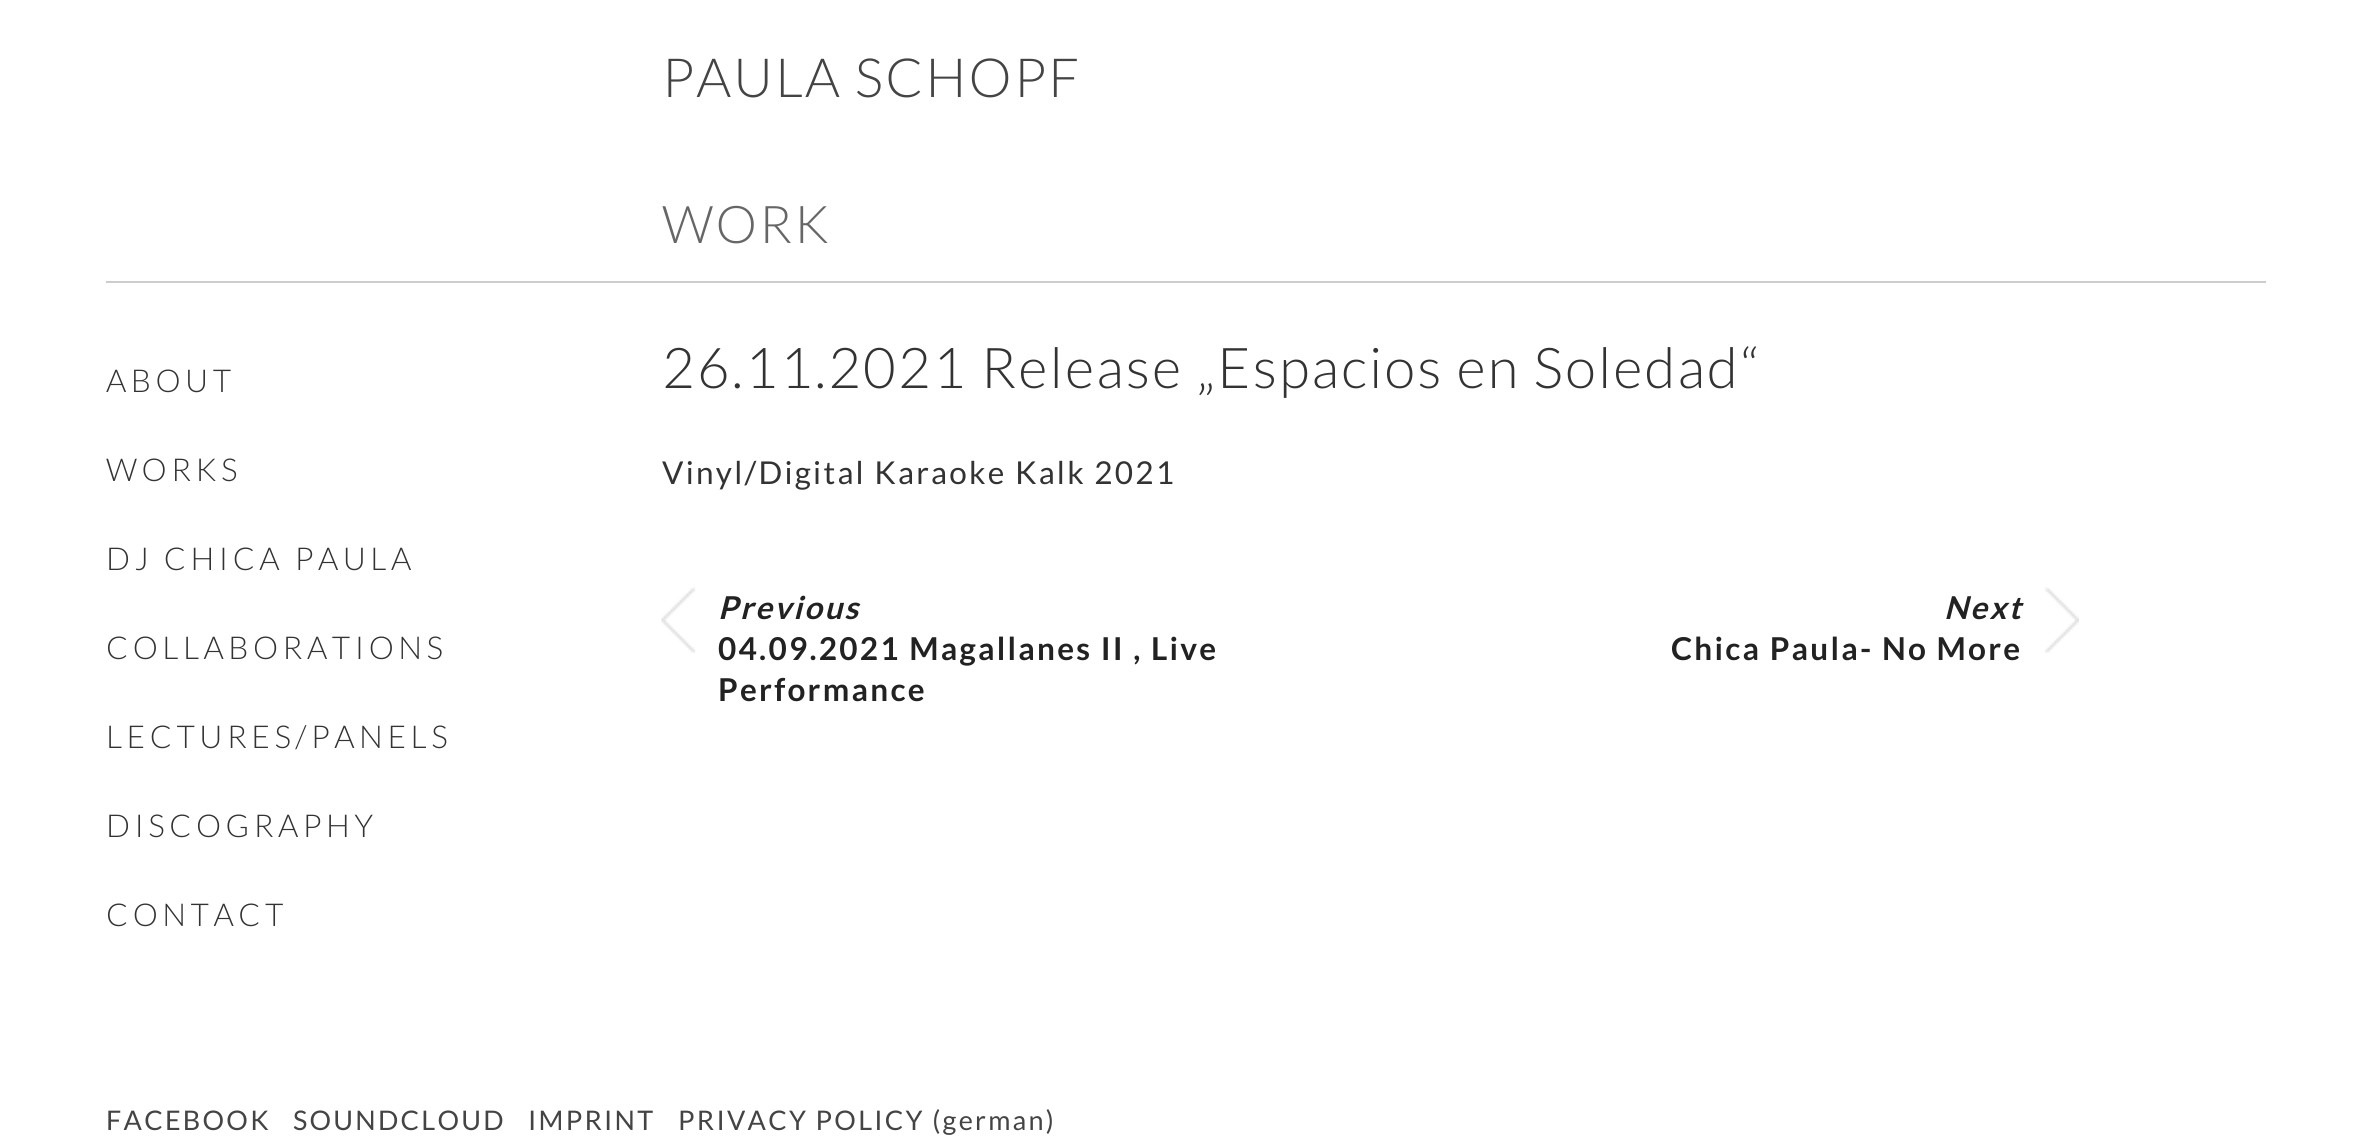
import math
import cairo



def draw_spaced(context, x, y, s, letter, word):
    context.move_to(x, y)
    for ch in s:
        context.show_text(ch)
        context.rel_move_to(letter + word * (ch == ' '), 0)


def draw_image(context, path, x, y, w, h):
    context.save()
    context.set_source_surface(cairo.ImageSurface.create_from_png(path), x, y)
    context.rectangle(x, y, w, h)
    context.fill()
    context.restore()


def draw(context):
    context.set_source_rgb(1, 1, 1)
    context.paint()
    context.set_source_rgb(204 / 255, 204 / 255, 204 / 255)
    context.rectangle(106, 281, 2160, 2)
    context.fill()
    draw_image(context, "images/1.png", 661, 587, 35, 67)
    draw_image(context, "images/2.png", 2045, 587, 34, 67)
    context.select_font_face("Lato Light")
    context.set_font_size(54)
    context.set_source_rgb(68 / 255, 68 / 255, 68 / 255)
    draw_spaced(context, 662, 97, "PAULA SCHOPF", 2.25, 0)
    context.set_font_size(31.5)
    context.set_source_rgb(51 / 255, 51 / 255, 51 / 255)
    draw_spaced(context, 106, 392, "ABOUT", 4.5, 0)
    draw_spaced(context, 106, 481, "WORKS", 4.5, 0)
    draw_spaced(context, 106, 570, "DJ CHICA PAULA", 4.5, 0)
    draw_spaced(context, 106, 659, "COLLABORATIONS", 4.5, 0)
    draw_spaced(context, 106, 748, "LECTURES/PANELS", 4.5, 0)
    draw_spaced(context, 106, 837, "DISCOGRAPHY", 4.5, 0)
    draw_spaced(context, 106, 926, "CONTACT", 4.5, 0)
    context.set_font_size(52)
    context.set_source_rgb(102 / 255, 102 / 255, 102 / 255)
    draw_spaced(context, 662, 243, "WORK", 2.25, 0)
    context.set_font_size(56.25)
    context.set_source_rgb(51 / 255, 51 / 255, 51 / 255)
    draw_spaced(context, 662, 388, "26.11.2021 Release „Espacios en Soledad“", 2.25, 0)
    context.select_font_face("Lato")
    context.set_font_size(31.5)
    draw_spaced(context, 662, 484, "Vinyl/Digital Karaoke Kalk 2021", 2.25, 0)
    context.select_font_face("Lato", cairo.FontSlant.ITALIC, cairo.FontWeight.BOLD)
    context.set_source_rgb(34 / 255, 34 / 255, 34 / 255)
    draw_spaced(context, 718, 619, "Previous", 2.25, 0)
    context.select_font_face("Lato", cairo.FontSlant.NORMAL, cairo.FontWeight.BOLD)
    draw_spaced(context, 718, 660, "04.09.2021 Magallanes II , Live", 2.25, 0)
    draw_spaced(context, 718, 701, "Performance", 2.25, 0)
    context.select_font_face("Lato", cairo.FontSlant.ITALIC, cairo.FontWeight.BOLD)
    draw_spaced(context, 1944, 619, "Next", 2.25, 0)
    context.select_font_face("Lato", cairo.FontSlant.NORMAL, cairo.FontWeight.BOLD)
    draw_spaced(context, 1671, 660, "Chica Paula- No More", 2.25, 0)
    context.select_font_face("Lato")
    context.set_font_size(27)
    context.set_source_rgb(68 / 255, 68 / 255, 68 / 255)
    draw_spaced(context, 106, 1130, "FACEBOOK", 2.25, 0)
    draw_spaced(context, 293, 1130, "SOUNDCLOUD", 2.25, 0)
    draw_spaced(context, 528, 1130, "IMPRINT", 2.25, 0)
    draw_spaced(context, 678, 1130, "PRIVACY POLICY (german)", 2.25, 0)


surface = cairo.ImageSurface(cairo.Format.RGB24, 2371, 1140)
context = cairo.Context(surface)
options = cairo.FontOptions()
options.set_hint_metrics(cairo.HintMetrics.OFF)
options.set_hint_style(cairo.HintStyle.NONE)
context.set_font_options(options)
context.set_miter_limit(4)
draw(context)
surface.write_to_png("out.png")
